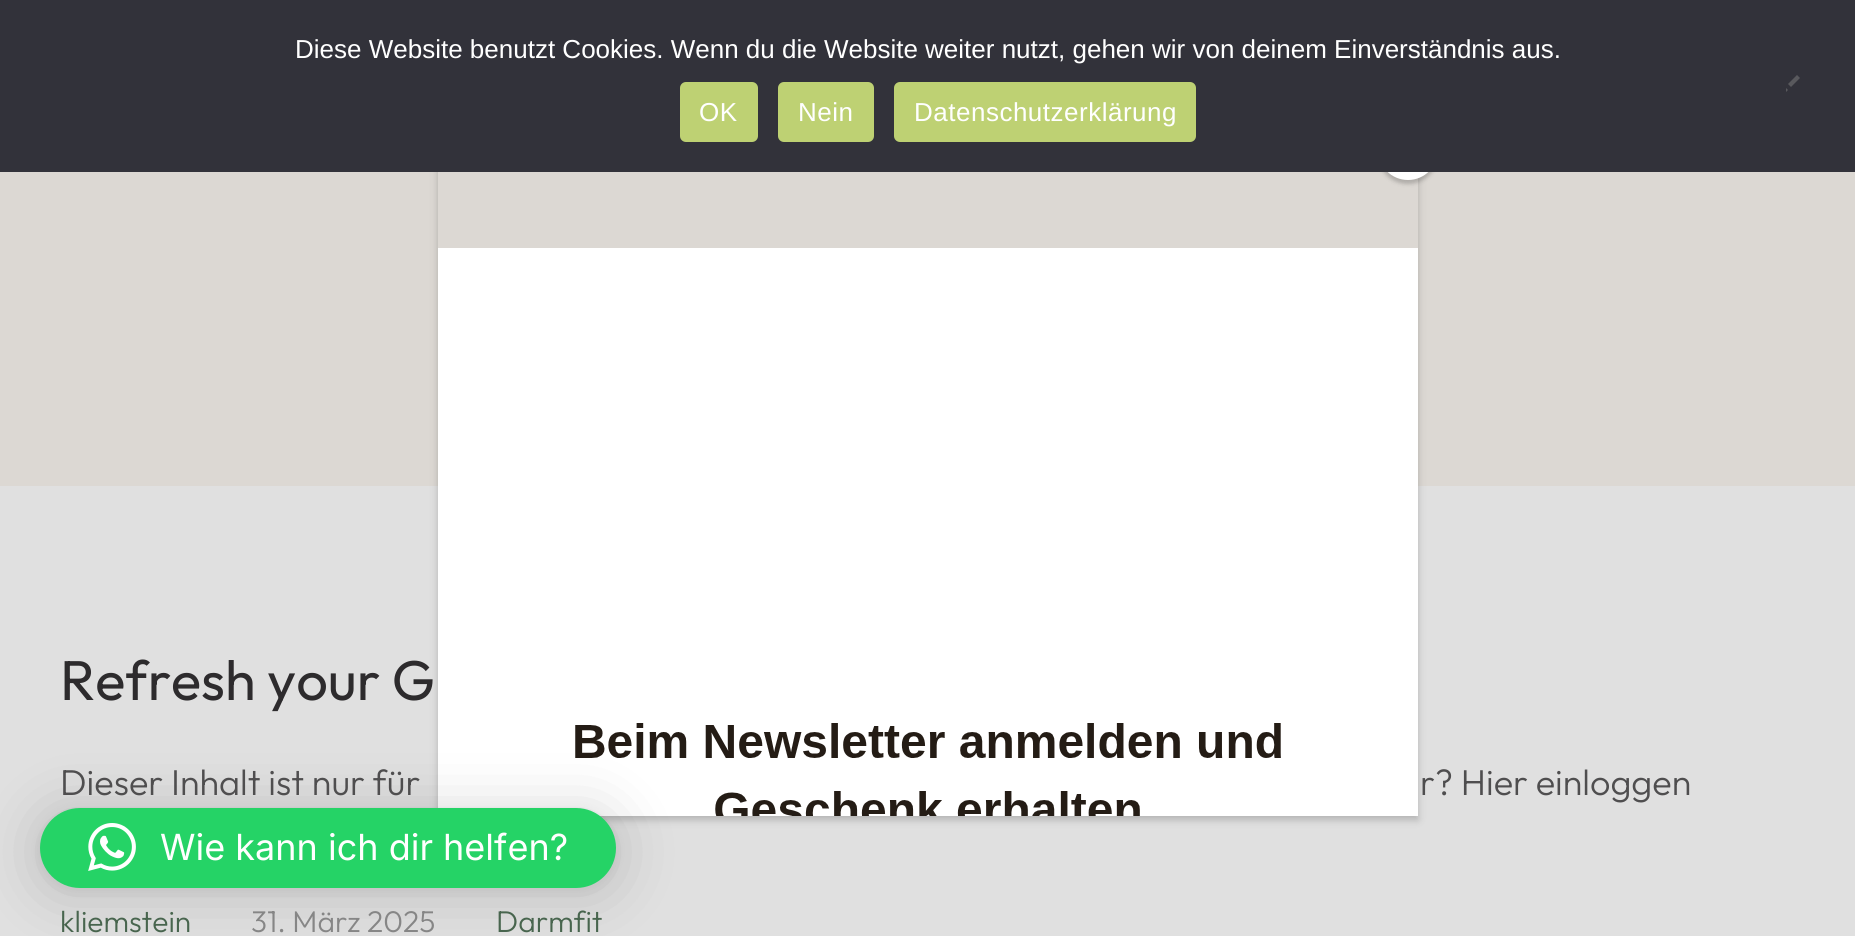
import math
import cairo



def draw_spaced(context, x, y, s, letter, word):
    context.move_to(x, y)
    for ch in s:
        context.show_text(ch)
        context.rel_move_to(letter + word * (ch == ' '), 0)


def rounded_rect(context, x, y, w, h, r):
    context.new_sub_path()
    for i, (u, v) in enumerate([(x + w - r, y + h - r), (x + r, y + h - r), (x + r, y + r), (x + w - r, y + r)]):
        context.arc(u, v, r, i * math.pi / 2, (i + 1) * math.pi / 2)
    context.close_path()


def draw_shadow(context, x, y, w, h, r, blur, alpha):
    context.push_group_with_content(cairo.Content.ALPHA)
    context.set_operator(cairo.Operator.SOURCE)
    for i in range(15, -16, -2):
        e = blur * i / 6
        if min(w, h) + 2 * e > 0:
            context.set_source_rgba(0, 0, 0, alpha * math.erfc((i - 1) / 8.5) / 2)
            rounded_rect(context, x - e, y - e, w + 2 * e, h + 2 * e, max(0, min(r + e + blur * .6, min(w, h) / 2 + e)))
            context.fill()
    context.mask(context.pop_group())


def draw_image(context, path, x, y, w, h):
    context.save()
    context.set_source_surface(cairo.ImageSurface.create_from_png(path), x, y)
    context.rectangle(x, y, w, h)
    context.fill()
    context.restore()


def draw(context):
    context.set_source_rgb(224 / 255, 224 / 255, 224 / 255)
    context.paint()
    context.set_source_rgb(220 / 255, 216 / 255, 211 / 255)
    context.rectangle(0, 172, 1855, 314)
    context.fill()
    context.set_source_rgb(0, 0, 0)
    draw_shadow(context, 1378, 124, 60, 60, 30, 2, 0.2)
    context.save()
    context.set_fill_rule(cairo.FillRule.EVEN_ODD)
    context.new_path()
    context.move_to(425, 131)
    context.line_to(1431, 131)
    context.line_to(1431, 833)
    context.line_to(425, 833)
    context.close_path()
    context.move_to(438, 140)
    context.line_to(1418, 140)
    context.line_to(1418, 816)
    context.line_to(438, 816)
    context.close_path()
    context.clip()
    draw_shadow(context, 438, 144, 980, 676, 0, 4, 0.2)
    context.restore()
    context.set_source_rgb(1, 1, 1)
    context.arc(1408, 150, 30, 0, 2 * math.pi)
    context.fill()
    context.set_source_rgb(50 / 255, 50 / 255, 58 / 255)
    context.rectangle(0, 0, 1855, 172)
    context.fill()
    context.set_source_rgb(89 / 255, 89 / 255, 93 / 255)
    context.new_path()
    context.move_to(1797, 75)
    context.line_to(1800, 78)
    context.line_to(1786, 92)
    context.line_to(1786, 86)
    context.close_path()
    context.fill()
    context.set_source_rgb(50 / 255, 50 / 255, 58 / 255)
    context.new_path()
    context.move_to(1786, 88)
    context.line_to(1786, 82)
    context.line_to(1800, 96)
    context.line_to(1797, 99)
    context.close_path()
    context.fill()
    context.set_source_rgb(190 / 255, 209 / 255, 115 / 255)
    rounded_rect(context, 680, 82, 78, 60, 6)
    context.fill()
    rounded_rect(context, 778, 82, 96, 60, 6)
    context.fill()
    rounded_rect(context, 894, 82, 302, 60, 6)
    context.fill()
    draw_image(context, "images/1.png", 438, 248, 980, 568)
    context.set_source_rgb(0, 0, 0)
    draw_shadow(context, 40, 812, 576, 80, 40, 32, 0.16)
    draw_shadow(context, 40, 810, 576, 80, 40, 6, 0.06)
    context.set_source_rgb(37 / 255, 211 / 255, 102 / 255)
    rounded_rect(context, 40, 808, 576, 80, 40)
    context.fill()
    draw_image(context, "images/2.png", 88, 823, 48, 48)
    context.select_font_face("Liberation Sans")
    context.set_font_size(26)
    context.set_source_rgb(1, 1, 1)
    context.move_to(295, 58)
    context.show_text("Diese Website benutzt Cookies. Wenn du die Website weiter nutzt, gehen wir von deinem Einverständnis aus.")
    draw_spaced(context, 699, 121, "OK", 0.5, 0)
    draw_spaced(context, 798, 121, "Nein", 0.5, 0)
    draw_spaced(context, 914, 121, "Datenschutzerklärung", 0.5, 0)
    context.select_font_face("Outfit Thin")
    context.set_font_size(56)
    context.set_source_rgb(45 / 255, 43 / 255, 45 / 255)
    context.move_to(60, 700)
    context.show_text("Refresh your G")
    context.select_font_face("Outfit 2 Thin")
    context.set_font_size(36)
    context.set_source_rgb(79 / 255, 78 / 255, 79 / 255)
    context.move_to(60, 795)
    context.show_text("Dieser Inhalt ist nur für")
    context.move_to(1420, 795)
    context.show_text("r? Hier einloggen")
    context.set_font_size(30)
    context.set_source_rgb(72 / 255, 101 / 255, 78 / 255)
    context.move_to(60, 932)
    context.show_text("kliemstein")
    context.set_source_rgb(134 / 255, 134 / 255, 134 / 255)
    context.move_to(251, 932)
    context.show_text("31. März 2025")
    context.set_source_rgb(72 / 255, 101 / 255, 78 / 255)
    context.move_to(496, 932)
    context.show_text("Darmfit")
    context.select_font_face("Inter")
    context.set_font_size(36)
    context.set_source_rgb(1, 1, 1)
    context.move_to(160, 860)
    context.show_text("Wie kann ich dir helfen?")


surface = cairo.ImageSurface(cairo.Format.RGB24, 1855, 936)
context = cairo.Context(surface)
options = cairo.FontOptions()
options.set_hint_metrics(cairo.HintMetrics.OFF)
options.set_hint_style(cairo.HintStyle.NONE)
context.set_font_options(options)
context.set_miter_limit(4)
draw(context)
surface.write_to_png("out.png")
